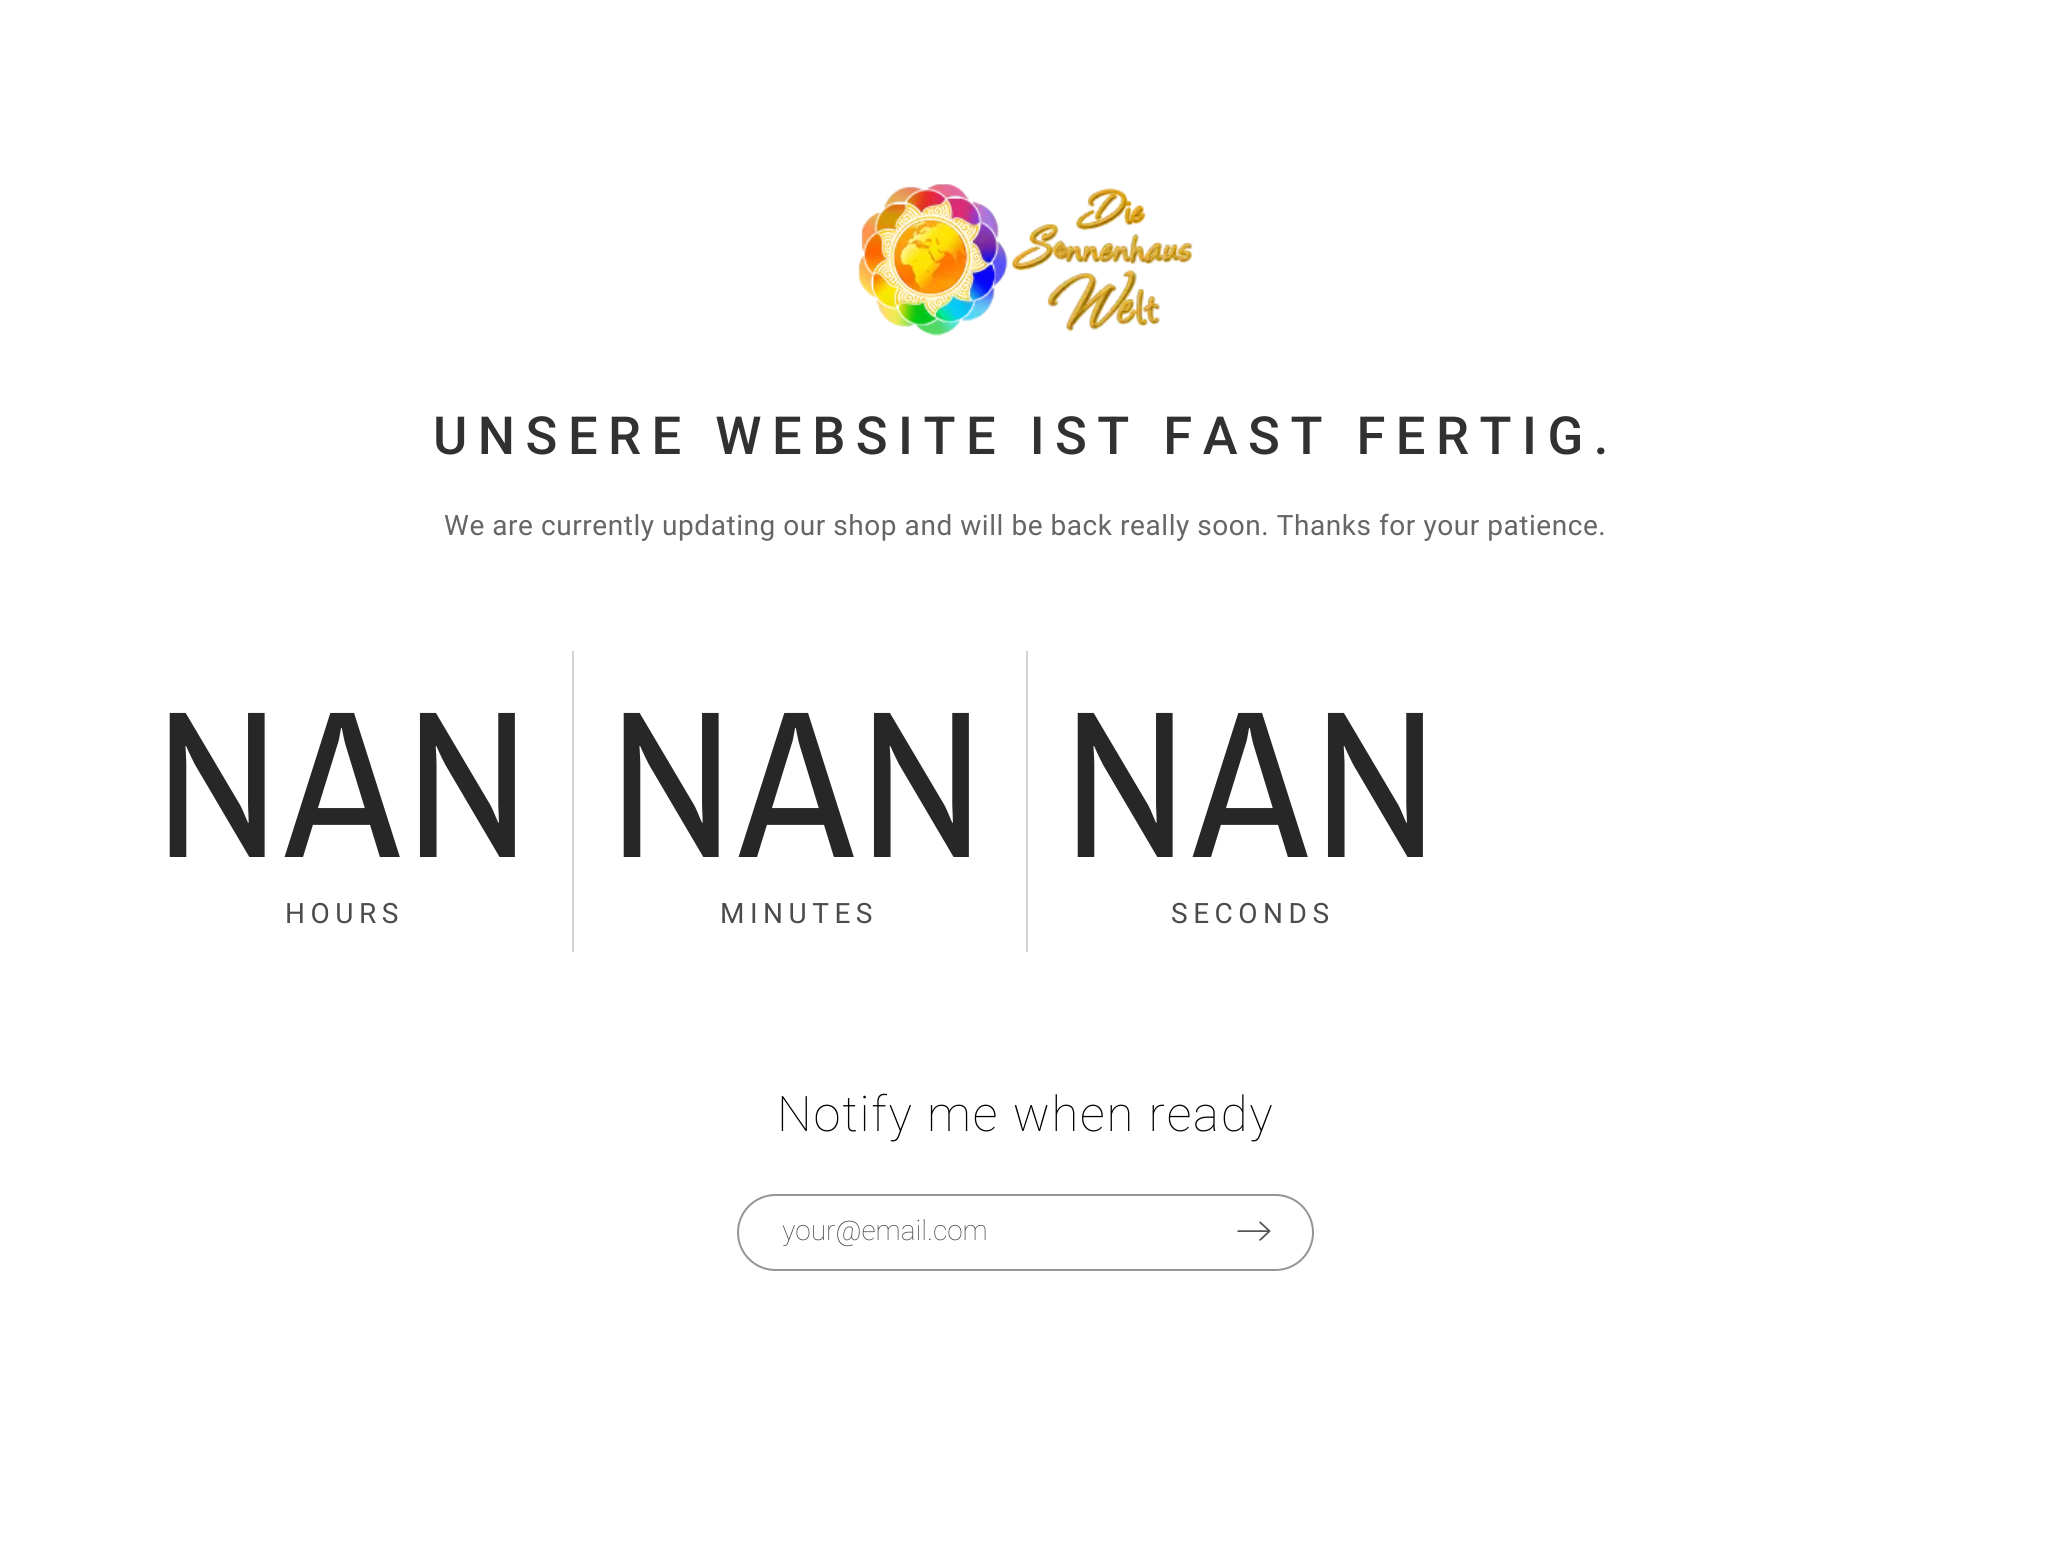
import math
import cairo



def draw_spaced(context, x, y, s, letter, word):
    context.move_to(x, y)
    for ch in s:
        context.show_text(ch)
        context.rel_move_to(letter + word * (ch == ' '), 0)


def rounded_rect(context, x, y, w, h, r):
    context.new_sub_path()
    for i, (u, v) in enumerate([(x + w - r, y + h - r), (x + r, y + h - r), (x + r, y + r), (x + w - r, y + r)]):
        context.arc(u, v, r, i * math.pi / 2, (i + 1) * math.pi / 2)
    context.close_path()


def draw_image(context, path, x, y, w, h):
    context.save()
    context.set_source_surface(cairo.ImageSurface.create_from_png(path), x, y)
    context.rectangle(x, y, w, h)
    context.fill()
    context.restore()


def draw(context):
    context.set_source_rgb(1, 1, 1)
    context.paint()
    draw_image(context, "images/1.png", 858, 184, 335, 152)
    context.set_source_rgb(212 / 255, 212 / 255, 212 / 255)
    context.rectangle(572, 651, 2, 301)
    context.fill()
    context.rectangle(1026, 651, 2, 301)
    context.fill()
    rounded_rect(context, 738, 1195, 575, 75, 37.5)
    context.set_source_rgb(149 / 255, 149 / 255, 149 / 255)
    context.stroke()
    draw_image(context, "images/2.png", 1237, 1221, 34, 20)
    context.select_font_face("Roboto Medium")
    context.set_font_size(52.5)
    context.set_source_rgb(49 / 255, 49 / 255, 49 / 255)
    draw_spaced(context, 433, 454, "UNSERE WEBSITE IST FAST FERTIG.", 10.5, 0)
    context.select_font_face("Roboto")
    context.set_font_size(28)
    context.set_source_rgb(102 / 255, 102 / 255, 102 / 255)
    draw_spaced(context, 444, 535, "We are currently updating our shop and will be back really soon. Thanks for your patience.", 0.55, 0)
    context.select_font_face("Archivo Narrow")
    context.set_font_size(210)
    context.set_source_rgb(39 / 255, 39 / 255, 39 / 255)
    draw_spaced(context, 155, 857, "NAN", 5.5, 0)
    context.select_font_face("Roboto")
    context.set_font_size(28)
    context.set_source_rgb(76 / 255, 76 / 255, 76 / 255)
    draw_spaced(context, 285, 923, "HOURS", 5.5, 0)
    context.select_font_face("Archivo Narrow")
    context.set_font_size(210)
    context.set_source_rgb(39 / 255, 39 / 255, 39 / 255)
    draw_spaced(context, 609, 857, "NAN", 5.5, 0)
    context.select_font_face("Roboto")
    context.set_font_size(28)
    context.set_source_rgb(76 / 255, 76 / 255, 76 / 255)
    draw_spaced(context, 720, 923, "MINUTES", 5.5, 0)
    context.select_font_face("Archivo Narrow")
    context.set_font_size(210)
    context.set_source_rgb(39 / 255, 39 / 255, 39 / 255)
    draw_spaced(context, 1063, 857, "NAN", 5.5, 0)
    context.select_font_face("Roboto")
    context.set_font_size(28)
    context.set_source_rgb(76 / 255, 76 / 255, 76 / 255)
    draw_spaced(context, 1171, 923, "SECONDS", 5.5, 0)
    context.select_font_face("Roboto Thin")
    context.set_font_size(49)
    context.set_source_rgb(0, 0, 0)
    draw_spaced(context, 777, 1131, "Notify me when ready", 1.75, 0)
    context.set_font_size(28)
    context.set_source_rgb(66 / 255, 66 / 255, 66 / 255)
    context.move_to(782, 1240)
    context.show_text("your@email.com")


surface = cairo.ImageSurface(cairo.Format.RGB24, 2051, 1554)
context = cairo.Context(surface)
options = cairo.FontOptions()
options.set_hint_metrics(cairo.HintMetrics.OFF)
options.set_hint_style(cairo.HintStyle.NONE)
context.set_font_options(options)
context.set_miter_limit(4)
draw(context)
surface.write_to_png("out.png")
